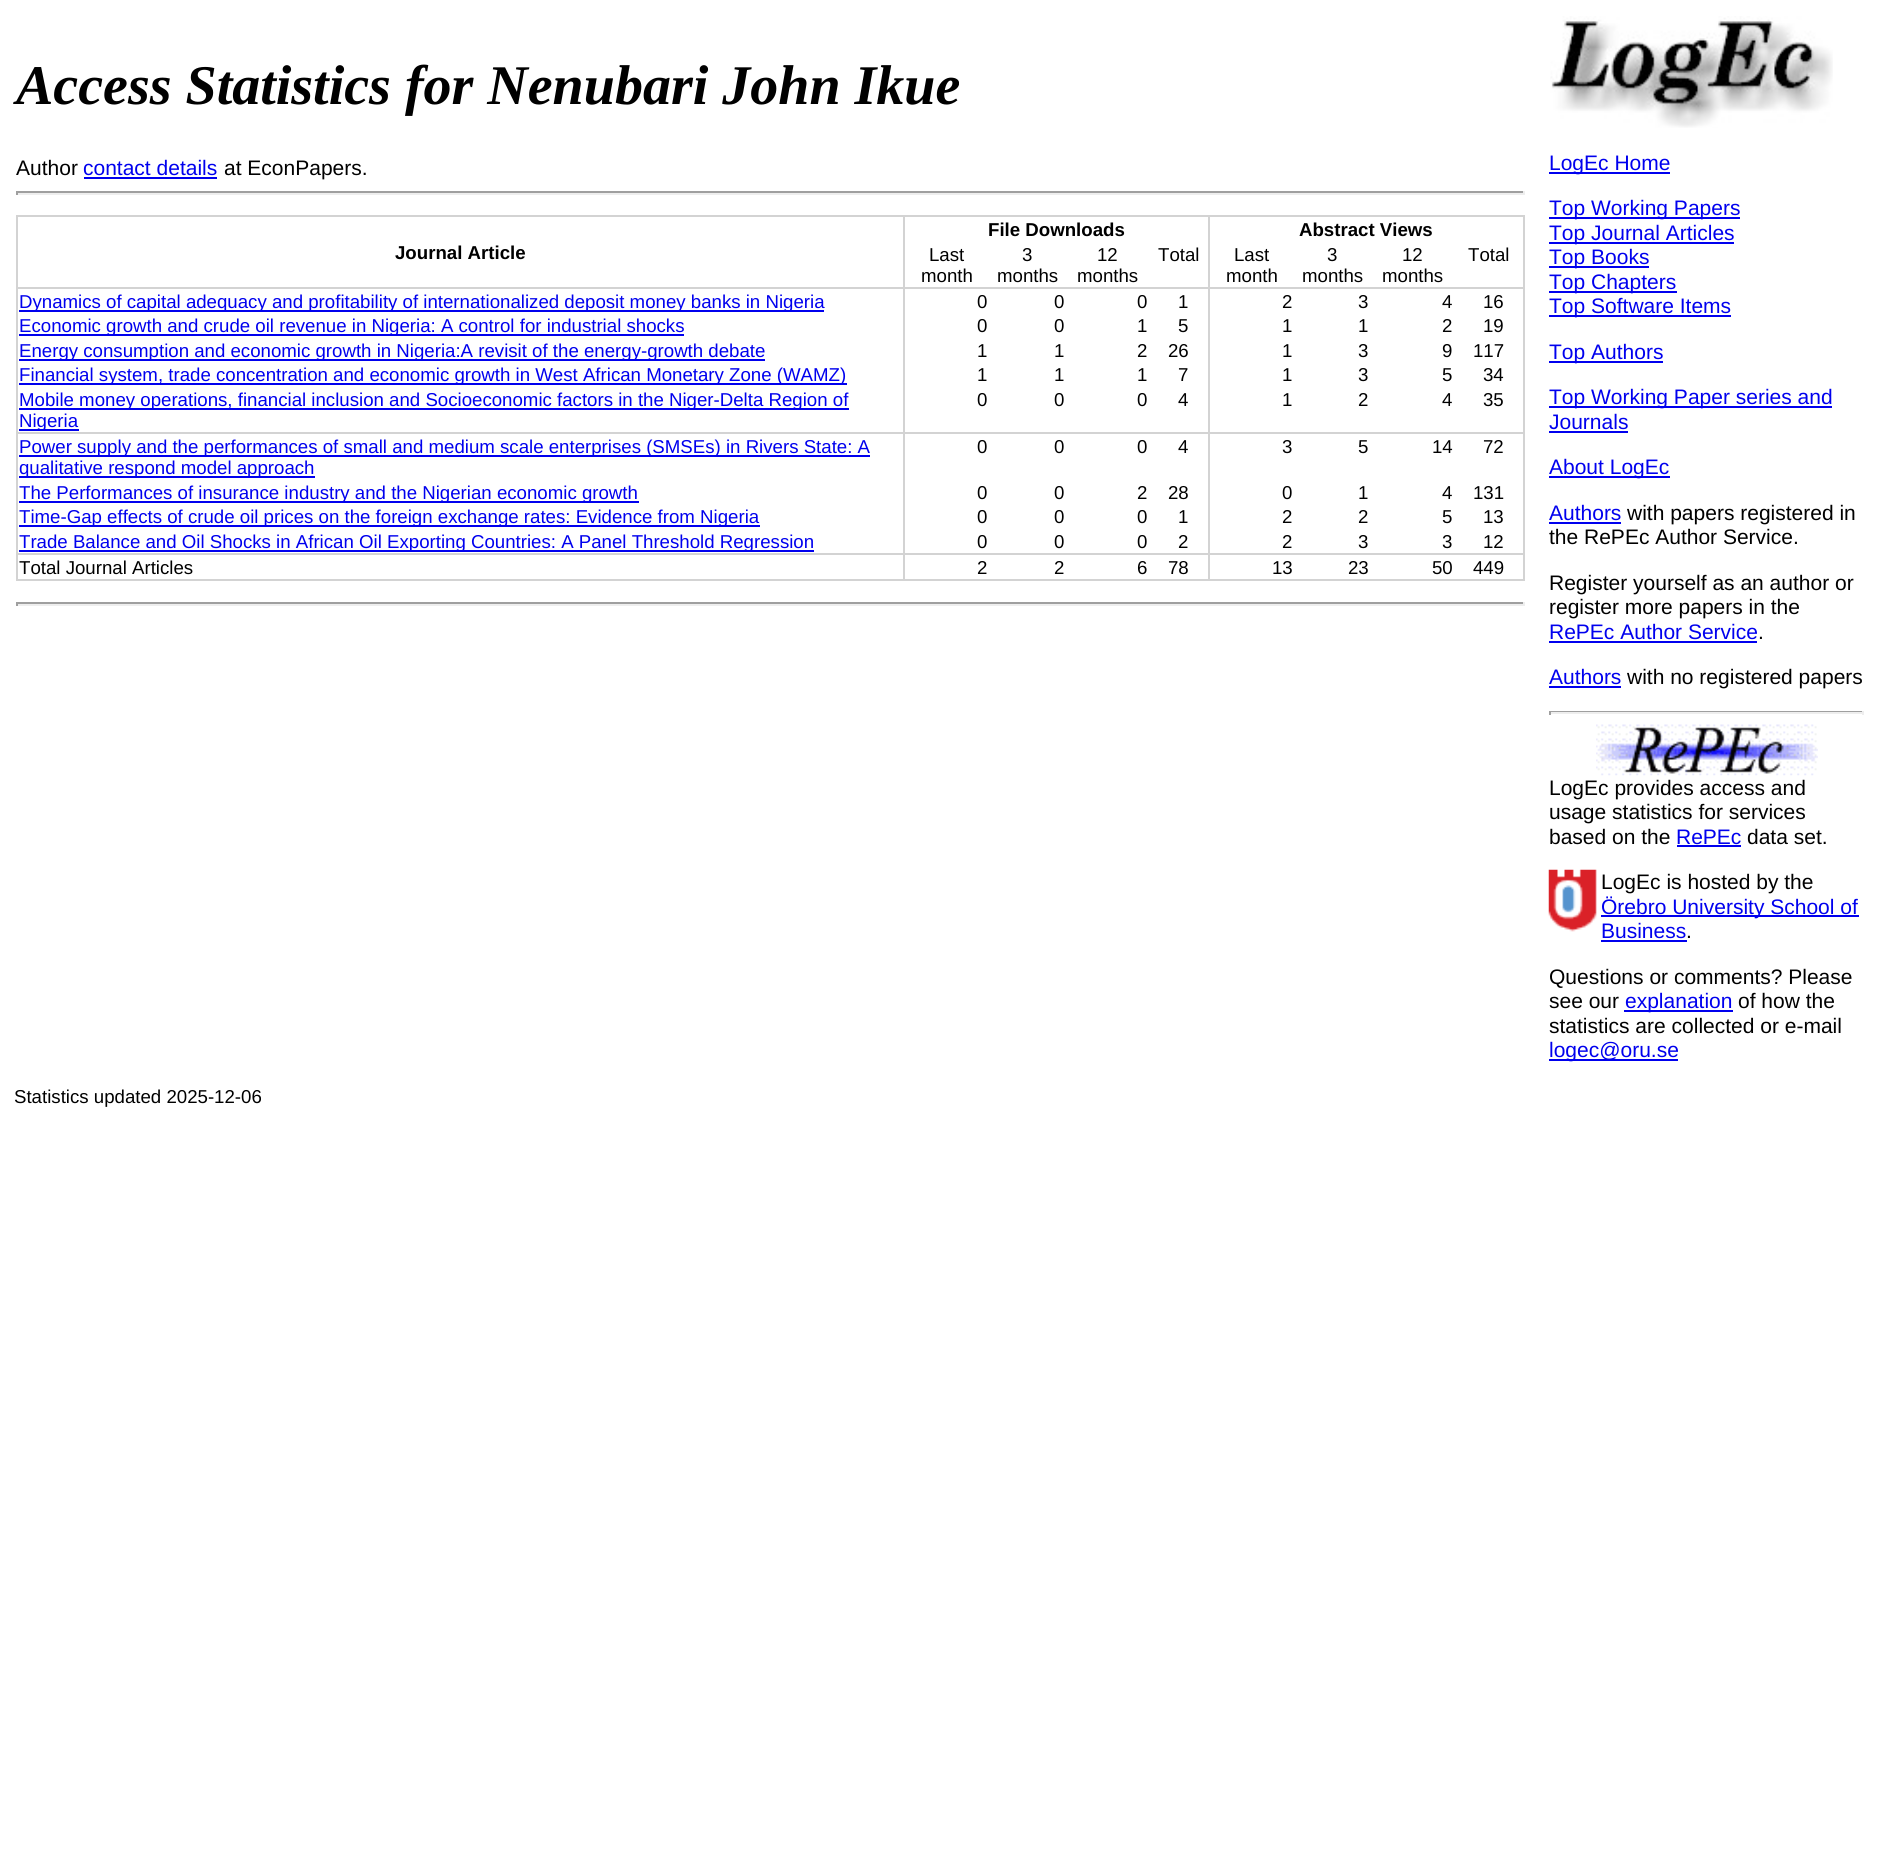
import math
import cairo



def draw_image(context, path, x, y, w, h):
    context.save()
    context.set_source_surface(cairo.ImageSurface.create_from_png(path), x, y)
    context.rectangle(x, y, w, h)
    context.fill()
    context.restore()


def draw(context):
    context.set_source_rgb(1, 1, 1)
    context.paint()
    context.set_source_rgb(0, 0, 238 / 255)
    context.rectangle(84, 177, 133, 2)
    context.fill()
    context.set_source_rgb(159 / 255, 159 / 255, 159 / 255)
    context.rectangle(16, 191, 1508, 2)
    context.fill()
    context.set_source_rgb(238 / 255, 238 / 255, 238 / 255)
    context.rectangle(1523, 191, 2, 4)
    context.fill()
    context.rectangle(16, 193, 1508, 2)
    context.fill()
    context.set_source_rgb(159 / 255, 159 / 255, 159 / 255)
    context.rectangle(16, 191, 2, 4)
    context.fill()
    context.set_source_rgb(211 / 255, 211 / 255, 211 / 255)
    context.rectangle(903, 215, 2, 366)
    context.fill()
    context.rectangle(16, 215, 2, 366)
    context.fill()
    context.rectangle(1208, 215, 2, 366)
    context.fill()
    context.rectangle(1523, 215, 2, 366)
    context.fill()
    context.rectangle(16, 215, 1508, 2)
    context.fill()
    context.rectangle(16, 287, 1508, 2)
    context.fill()
    context.set_source_rgb(0, 0, 238 / 255)
    context.rectangle(19, 310, 805, 2)
    context.fill()
    context.rectangle(19, 334, 665, 2)
    context.fill()
    context.rectangle(19, 359, 746, 2)
    context.fill()
    context.rectangle(19, 383, 828, 2)
    context.fill()
    context.set_source_rgb(211 / 255, 211 / 255, 211 / 255)
    context.rectangle(16, 432, 1508, 2)
    context.fill()
    context.set_source_rgb(0, 0, 238 / 255)
    context.rectangle(19, 408, 830, 2)
    context.fill()
    context.rectangle(19, 429, 60, 2)
    context.fill()
    context.rectangle(19, 455, 851, 2)
    context.fill()
    context.rectangle(19, 476, 296, 2)
    context.fill()
    context.rectangle(19, 501, 620, 2)
    context.fill()
    context.rectangle(19, 525, 741, 2)
    context.fill()
    context.set_source_rgb(211 / 255, 211 / 255, 211 / 255)
    context.rectangle(16, 553, 1508, 2)
    context.fill()
    context.set_source_rgb(0, 0, 238 / 255)
    context.rectangle(19, 550, 795, 2)
    context.fill()
    context.set_source_rgb(211 / 255, 211 / 255, 211 / 255)
    context.rectangle(16, 579, 1508, 2)
    context.fill()
    context.set_source_rgb(159 / 255, 159 / 255, 159 / 255)
    context.rectangle(16, 602, 1508, 2)
    context.fill()
    context.set_source_rgb(238 / 255, 238 / 255, 238 / 255)
    context.rectangle(1523, 602, 2, 4)
    context.fill()
    context.rectangle(16, 604, 1508, 2)
    context.fill()
    context.set_source_rgb(159 / 255, 159 / 255, 159 / 255)
    context.rectangle(16, 602, 2, 4)
    context.fill()
    draw_image(context, "images/1.png", 1550, 16, 283, 112)
    context.set_source_rgb(0, 0, 238 / 255)
    context.rectangle(1549, 172, 121, 2)
    context.fill()
    context.rectangle(1549, 217, 191, 2)
    context.fill()
    context.rectangle(1549, 242, 185, 2)
    context.fill()
    context.rectangle(1549, 266, 100, 2)
    context.fill()
    context.rectangle(1549, 291, 128, 2)
    context.fill()
    context.rectangle(1549, 315, 182, 2)
    context.fill()
    context.rectangle(1549, 361, 114, 2)
    context.fill()
    context.rectangle(1549, 406, 283, 2)
    context.fill()
    context.rectangle(1549, 431, 79, 2)
    context.fill()
    context.rectangle(1549, 476, 121, 2)
    context.fill()
    context.rectangle(1549, 522, 72, 2)
    context.fill()
    context.rectangle(1549, 641, 208, 2)
    context.fill()
    context.rectangle(1549, 686, 72, 2)
    context.fill()
    context.set_source_rgb(159 / 255, 159 / 255, 159 / 255)
    context.rectangle(1549, 711, 315, 1)
    context.fill()
    context.set_source_rgb(238 / 255, 238 / 255, 238 / 255)
    context.rectangle(1862, 711, 2, 4)
    context.fill()
    context.rectangle(1549, 712, 315, 2)
    context.fill()
    context.set_source_rgb(159 / 255, 159 / 255, 159 / 255)
    context.rectangle(1549, 711, 2, 4)
    context.fill()
    draw_image(context, "images/2.png", 1596, 724, 222, 52)
    context.set_source_rgb(0, 0, 238 / 255)
    context.rectangle(1677, 845, 64, 2)
    context.fill()
    draw_image(context, "images/3.png", 1548, 869, 49, 63)
    context.rectangle(1601, 915, 258, 2)
    context.fill()
    context.rectangle(1601, 940, 86, 2)
    context.fill()
    context.rectangle(1624, 1010, 109, 2)
    context.fill()
    context.rectangle(1549, 1059, 129, 2)
    context.fill()
    context.select_font_face("Liberation Serif", cairo.FontSlant.ITALIC, cairo.FontWeight.BOLD)
    context.set_font_size(56)
    context.set_source_rgb(0, 0, 0)
    context.move_to(16, 104)
    context.show_text("Access Statistics for Nenubari John Ikue")
    context.select_font_face("Liberation Sans")
    context.set_font_size(21)
    context.move_to(16, 175)
    context.show_text("Author")
    context.set_source_rgb(0, 0, 238 / 255)
    context.move_to(83, 175)
    context.show_text("contact details")
    context.set_source_rgb(0, 0, 0)
    context.move_to(224, 175)
    context.show_text("at EconPapers.")
    context.select_font_face("Liberation Sans", cairo.FontSlant.NORMAL, cairo.FontWeight.BOLD)
    context.set_font_size(18.65)
    context.move_to(988, 236)
    context.show_text("File Downloads")
    context.move_to(1299, 236)
    context.show_text("Abstract Views")
    context.move_to(395, 259)
    context.show_text("Journal Article")
    context.select_font_face("Liberation Sans")
    context.move_to(929, 261)
    context.show_text("Last")
    context.move_to(921, 282)
    context.show_text("month")
    context.move_to(1022, 261)
    context.show_text("3")
    context.move_to(997, 282)
    context.show_text("months")
    context.move_to(1097, 261)
    context.show_text("12")
    context.move_to(1077, 282)
    context.show_text("months")
    context.move_to(1158, 261)
    context.show_text("Total")
    context.move_to(1234, 261)
    context.show_text("Last")
    context.move_to(1226, 282)
    context.show_text("month")
    context.move_to(1327, 261)
    context.show_text("3")
    context.move_to(1302, 282)
    context.show_text("months")
    context.move_to(1402, 261)
    context.show_text("12")
    context.move_to(1382, 282)
    context.show_text("months")
    context.move_to(1468, 261)
    context.show_text("Total")
    context.set_source_rgb(0, 0, 238 / 255)
    context.move_to(19, 308)
    context.show_text("Dynamics of capital adequacy and profitability of internationalized deposit money banks in Nigeria")
    context.set_source_rgb(0, 0, 0)
    context.move_to(977, 308)
    context.show_text("0")
    context.move_to(1054, 308)
    context.show_text("0")
    context.move_to(1137, 308)
    context.show_text("0")
    context.move_to(1178, 308)
    context.show_text("1")
    context.move_to(1282, 308)
    context.show_text("2")
    context.move_to(1358, 308)
    context.show_text("3")
    context.move_to(1442, 308)
    context.show_text("4")
    context.move_to(1483, 308)
    context.show_text("16")
    context.set_source_rgb(0, 0, 238 / 255)
    context.move_to(19, 332)
    context.show_text("Economic growth and crude oil revenue in Nigeria: A control for industrial shocks")
    context.set_source_rgb(0, 0, 0)
    context.move_to(977, 332)
    context.show_text("0")
    context.move_to(1054, 332)
    context.show_text("0")
    context.move_to(1137, 332)
    context.show_text("1")
    context.move_to(1178, 332)
    context.show_text("5")
    context.move_to(1282, 332)
    context.show_text("1")
    context.move_to(1358, 332)
    context.show_text("1")
    context.move_to(1442, 332)
    context.show_text("2")
    context.move_to(1483, 332)
    context.show_text("19")
    context.set_source_rgb(0, 0, 238 / 255)
    context.move_to(19, 357)
    context.show_text("Energy consumption and economic growth in Nigeria:A revisit of the energy-growth debate")
    context.set_source_rgb(0, 0, 0)
    context.move_to(977, 357)
    context.show_text("1")
    context.move_to(1054, 357)
    context.show_text("1")
    context.move_to(1137, 357)
    context.show_text("2")
    context.move_to(1168, 357)
    context.show_text("26")
    context.move_to(1282, 357)
    context.show_text("1")
    context.move_to(1358, 357)
    context.show_text("3")
    context.move_to(1442, 357)
    context.show_text("9")
    context.move_to(1473, 357)
    context.show_text("117")
    context.set_source_rgb(0, 0, 238 / 255)
    context.move_to(19, 381)
    context.show_text("Financial system, trade concentration and economic growth in West African Monetary Zone (WAMZ)")
    context.set_source_rgb(0, 0, 0)
    context.move_to(977, 381)
    context.show_text("1")
    context.move_to(1054, 381)
    context.show_text("1")
    context.move_to(1137, 381)
    context.show_text("1")
    context.move_to(1178, 381)
    context.show_text("7")
    context.move_to(1282, 381)
    context.show_text("1")
    context.move_to(1358, 381)
    context.show_text("3")
    context.move_to(1442, 381)
    context.show_text("5")
    context.move_to(1483, 381)
    context.show_text("34")
    context.set_source_rgb(0, 0, 238 / 255)
    context.move_to(19, 406)
    context.show_text("Mobile money operations, financial inclusion and Socioeconomic factors in the Niger-Delta Region of")
    context.move_to(19, 427)
    context.show_text("Nigeria")
    context.set_source_rgb(0, 0, 0)
    context.move_to(977, 406)
    context.show_text("0")
    context.move_to(1054, 406)
    context.show_text("0")
    context.move_to(1137, 406)
    context.show_text("0")
    context.move_to(1178, 406)
    context.show_text("4")
    context.move_to(1282, 406)
    context.show_text("1")
    context.move_to(1358, 406)
    context.show_text("2")
    context.move_to(1442, 406)
    context.show_text("4")
    context.move_to(1483, 406)
    context.show_text("35")
    context.set_source_rgb(0, 0, 238 / 255)
    context.move_to(19, 453)
    context.show_text("Power supply and the performances of small and medium scale enterprises (SMSEs) in Rivers State: A")
    context.move_to(19, 474)
    context.show_text("qualitative respond model approach")
    context.set_source_rgb(0, 0, 0)
    context.move_to(977, 453)
    context.show_text("0")
    context.move_to(1054, 453)
    context.show_text("0")
    context.move_to(1137, 453)
    context.show_text("0")
    context.move_to(1178, 453)
    context.show_text("4")
    context.move_to(1282, 453)
    context.show_text("3")
    context.move_to(1358, 453)
    context.show_text("5")
    context.move_to(1432, 453)
    context.show_text("14")
    context.move_to(1483, 453)
    context.show_text("72")
    context.set_source_rgb(0, 0, 238 / 255)
    context.move_to(19, 499)
    context.show_text("The Performances of insurance industry and the Nigerian economic growth")
    context.set_source_rgb(0, 0, 0)
    context.move_to(977, 499)
    context.show_text("0")
    context.move_to(1054, 499)
    context.show_text("0")
    context.move_to(1137, 499)
    context.show_text("2")
    context.move_to(1168, 499)
    context.show_text("28")
    context.move_to(1282, 499)
    context.show_text("0")
    context.move_to(1358, 499)
    context.show_text("1")
    context.move_to(1442, 499)
    context.show_text("4")
    context.move_to(1473, 499)
    context.show_text("131")
    context.set_source_rgb(0, 0, 238 / 255)
    context.move_to(19, 523)
    context.show_text("Time-Gap effects of crude oil prices on the foreign exchange rates: Evidence from Nigeria")
    context.set_source_rgb(0, 0, 0)
    context.move_to(977, 523)
    context.show_text("0")
    context.move_to(1054, 523)
    context.show_text("0")
    context.move_to(1137, 523)
    context.show_text("0")
    context.move_to(1178, 523)
    context.show_text("1")
    context.move_to(1282, 523)
    context.show_text("2")
    context.move_to(1358, 523)
    context.show_text("2")
    context.move_to(1442, 523)
    context.show_text("5")
    context.move_to(1483, 523)
    context.show_text("13")
    context.set_source_rgb(0, 0, 238 / 255)
    context.move_to(19, 548)
    context.show_text("Trade Balance and Oil Shocks in African Oil Exporting Countries: A Panel Threshold Regression")
    context.set_source_rgb(0, 0, 0)
    context.move_to(977, 548)
    context.show_text("0")
    context.move_to(1054, 548)
    context.show_text("0")
    context.move_to(1137, 548)
    context.show_text("0")
    context.move_to(1178, 548)
    context.show_text("2")
    context.move_to(1282, 548)
    context.show_text("2")
    context.move_to(1358, 548)
    context.show_text("3")
    context.move_to(1442, 548)
    context.show_text("3")
    context.move_to(1483, 548)
    context.show_text("12")
    context.move_to(19, 574)
    context.show_text("Total Journal Articles")
    context.move_to(977, 574)
    context.show_text("2")
    context.move_to(1054, 574)
    context.show_text("2")
    context.move_to(1137, 574)
    context.show_text("6")
    context.move_to(1168, 574)
    context.show_text("78")
    context.move_to(1272, 574)
    context.show_text("13")
    context.move_to(1348, 574)
    context.show_text("23")
    context.move_to(1432, 574)
    context.show_text("50")
    context.move_to(1473, 574)
    context.show_text("449")
    context.set_font_size(21)
    context.set_source_rgb(0, 0, 238 / 255)
    context.move_to(1549, 170)
    context.show_text("LogEc Home")
    context.move_to(1549, 215)
    context.show_text("Top Working Papers")
    context.move_to(1549, 240)
    context.show_text("Top Journal Articles")
    context.move_to(1549, 264)
    context.show_text("Top Books")
    context.move_to(1549, 289)
    context.show_text("Top Chapters")
    context.move_to(1549, 313)
    context.show_text("Top Software Items")
    context.move_to(1549, 359)
    context.show_text("Top Authors")
    context.move_to(1549, 404)
    context.show_text("Top Working Paper series and")
    context.move_to(1549, 429)
    context.show_text("Journals")
    context.move_to(1549, 474)
    context.show_text("About LogEc")
    context.move_to(1549, 520)
    context.show_text("Authors")
    context.set_source_rgb(0, 0, 0)
    context.move_to(1627, 520)
    context.show_text("with papers registered in")
    context.move_to(1549, 544)
    context.show_text("the RePEc Author Service.")
    context.move_to(1549, 590)
    context.show_text("Register yourself as an author or")
    context.move_to(1549, 614)
    context.show_text("register more papers in the")
    context.set_source_rgb(0, 0, 238 / 255)
    context.move_to(1549, 639)
    context.show_text("RePEc Author Service")
    context.set_source_rgb(0, 0, 0)
    context.move_to(1758, 639)
    context.show_text(".")
    context.set_source_rgb(0, 0, 238 / 255)
    context.move_to(1549, 684)
    context.show_text("Authors")
    context.set_source_rgb(0, 0, 0)
    context.move_to(1627, 684)
    context.show_text("with no registered papers")
    context.move_to(1549, 795)
    context.show_text("LogEc provides access and")
    context.move_to(1549, 819)
    context.show_text("usage statistics for services")
    context.move_to(1549, 844)
    context.show_text("based on the")
    context.set_source_rgb(0, 0, 238 / 255)
    context.move_to(1676, 844)
    context.show_text("RePEc")
    context.set_source_rgb(0, 0, 0)
    context.move_to(1747, 844)
    context.show_text("data set.")
    context.move_to(1601, 889)
    context.show_text("LogEc is hosted by the")
    context.set_source_rgb(0, 0, 238 / 255)
    context.move_to(1601, 914)
    context.show_text("Örebro University School of")
    context.move_to(1601, 938)
    context.show_text("Business")
    context.set_source_rgb(0, 0, 0)
    context.move_to(1686, 938)
    context.show_text(".")
    context.move_to(1549, 984)
    context.show_text("Questions or comments? Please")
    context.move_to(1549, 1008)
    context.show_text("see our")
    context.set_source_rgb(0, 0, 238 / 255)
    context.move_to(1625, 1008)
    context.show_text("explanation")
    context.set_source_rgb(0, 0, 0)
    context.move_to(1738, 1008)
    context.show_text("of how the")
    context.move_to(1549, 1033)
    context.show_text("statistics are collected or e-mail")
    context.set_source_rgb(0, 0, 238 / 255)
    context.move_to(1549, 1057)
    context.show_text("logec@oru.se")
    context.set_font_size(18.65)
    context.set_source_rgb(0, 0, 0)
    context.move_to(14, 1103)
    context.show_text("Statistics updated 2025-12-06")


surface = cairo.ImageSurface(cairo.Format.RGB24, 1879, 1869)
context = cairo.Context(surface)
options = cairo.FontOptions()
options.set_hint_metrics(cairo.HintMetrics.OFF)
options.set_hint_style(cairo.HintStyle.NONE)
context.set_font_options(options)
context.set_miter_limit(4)
draw(context)
surface.write_to_png("out.png")
